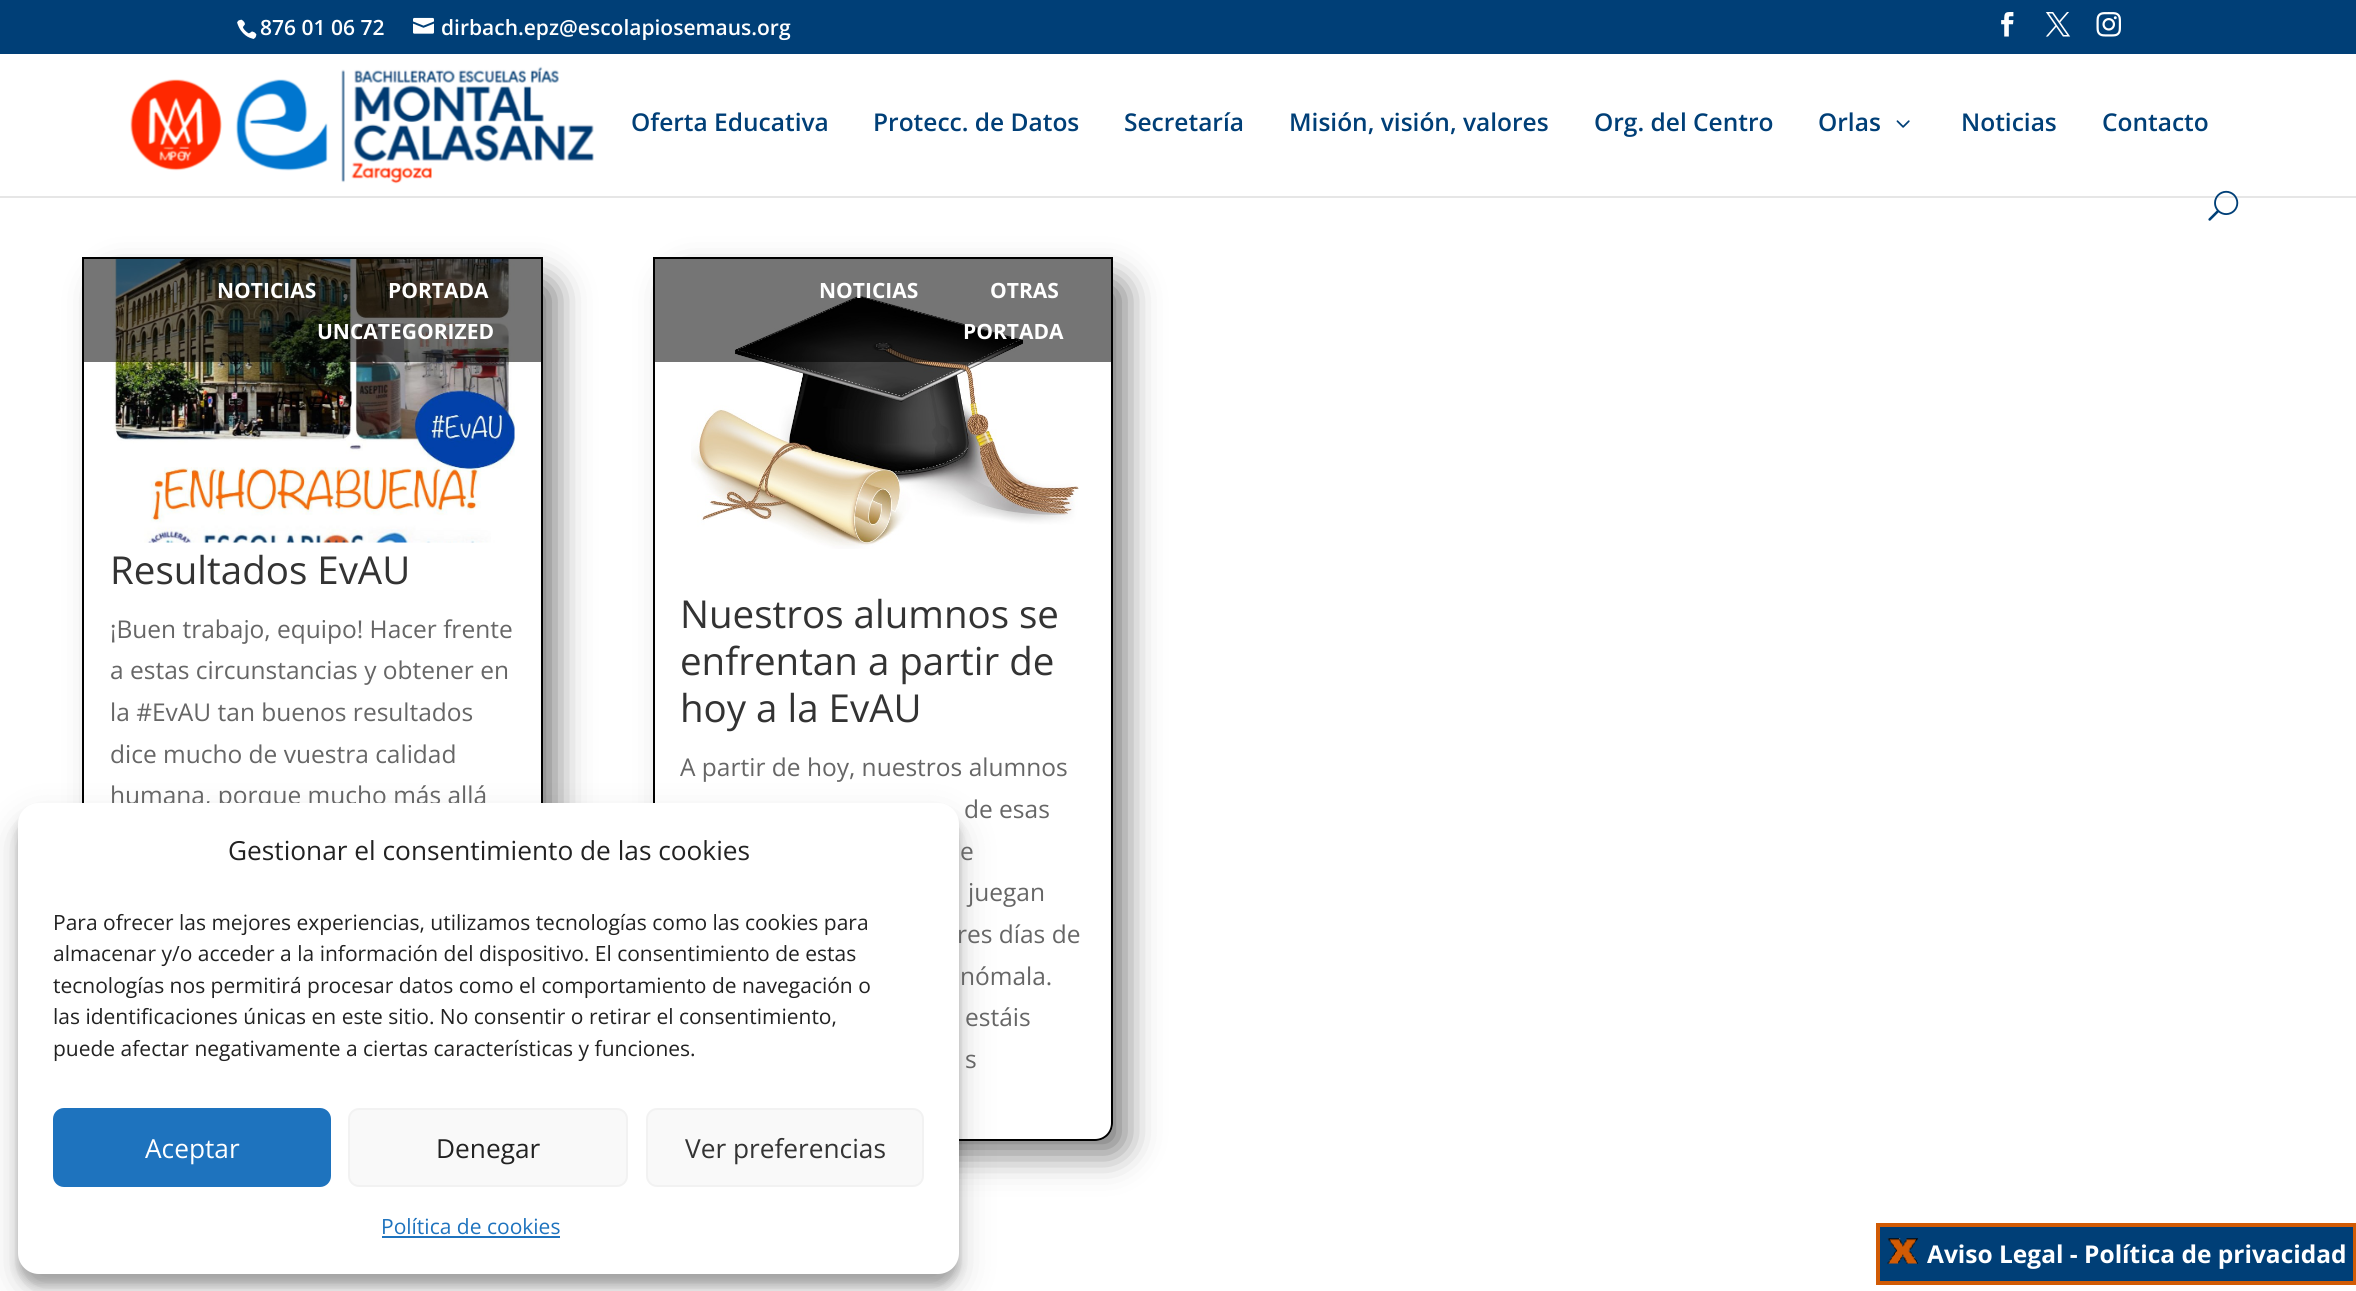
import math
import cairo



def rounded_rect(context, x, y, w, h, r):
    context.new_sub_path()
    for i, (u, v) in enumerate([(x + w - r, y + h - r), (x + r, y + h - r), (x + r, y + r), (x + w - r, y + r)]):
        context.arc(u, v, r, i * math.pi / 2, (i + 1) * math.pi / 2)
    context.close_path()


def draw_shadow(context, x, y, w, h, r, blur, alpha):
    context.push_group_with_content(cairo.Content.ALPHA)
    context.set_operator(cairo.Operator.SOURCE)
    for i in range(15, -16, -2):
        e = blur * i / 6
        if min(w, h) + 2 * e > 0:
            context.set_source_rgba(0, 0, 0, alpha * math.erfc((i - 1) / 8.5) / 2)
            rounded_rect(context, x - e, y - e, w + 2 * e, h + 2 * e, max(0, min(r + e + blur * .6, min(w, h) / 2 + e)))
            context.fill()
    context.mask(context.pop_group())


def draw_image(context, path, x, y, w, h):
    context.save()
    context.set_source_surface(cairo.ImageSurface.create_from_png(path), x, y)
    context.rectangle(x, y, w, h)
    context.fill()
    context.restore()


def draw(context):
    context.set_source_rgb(1, 1, 1)
    context.paint()
    context.set_source_rgb(0, 63 / 255, 119 / 255)
    context.rectangle(0, 0, 2356, 54)
    context.fill()
    draw_image(context, "images/1.png", 237, 19, 20, 20)
    draw_image(context, "images/2.png", 413, 17, 21, 17)
    draw_image(context, "images/3.png", 2001, 12, 13, 25)
    draw_image(context, "images/4.png", 2045, 12, 26, 25)
    draw_image(context, "images/5.png", 2096, 12, 25, 25)
    context.set_source_rgb(230 / 255, 230 / 255, 230 / 255)
    context.rectangle(0, 196, 2356, 2)
    context.fill()
    draw_image(context, "images/6.png", 130, 66, 464, 118)
    draw_image(context, "images/7.png", 1896, 120, 14, 8)
    draw_image(context, "images/8.png", 2208, 190, 31, 31)
    context.save()
    context.set_fill_rule(cairo.FillRule.EVEN_ODD)
    context.new_path()
    context.move_to(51, 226)
    context.line_to(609, 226)
    context.line_to(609, 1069)
    context.line_to(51, 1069)
    context.close_path()
    context.move_to(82, 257)
    context.line_to(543, 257)
    context.line_to(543, 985)
    context.curve_to(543, 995, 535, 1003, 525, 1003)
    context.line_to(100, 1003)
    context.curve_to(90, 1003, 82, 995, 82, 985)
    context.close_path()
    context.clip()
    context.set_source_rgb(0, 0, 0)
    draw_shadow(context, 105, 280, 450, 735, 12, 17.5, 0.55)
    context.restore()
    context.rectangle(83, 258, 459, 744)
    context.set_source_rgb(0, 0, 0)
    context.stroke()
    draw_image(context, "images/9.png", 110, 259, 405, 284)
    context.set_source_rgba(0, 0, 0, 0.54)
    context.rectangle(84, 259, 457, 103)
    context.fill()
    context.save()
    context.set_fill_rule(cairo.FillRule.EVEN_ODD)
    context.new_path()
    context.move_to(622, 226)
    context.line_to(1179, 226)
    context.line_to(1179, 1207)
    context.line_to(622, 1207)
    context.close_path()
    context.move_to(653, 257)
    context.line_to(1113, 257)
    context.line_to(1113, 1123)
    context.curve_to(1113, 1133, 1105, 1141, 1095, 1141)
    context.line_to(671, 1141)
    context.curve_to(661, 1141, 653, 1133, 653, 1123)
    context.close_path()
    context.clip()
    context.set_source_rgb(0, 0, 0)
    draw_shadow(context, 676, 280, 449, 873, 12, 17.5, 0.55)
    context.restore()
    context.new_path()
    context.move_to(654, 258)
    context.line_to(1112, 258)
    context.line_to(1112, 1123)
    context.curve_to(1112, 1132.5, 1104.5, 1140, 1095, 1140)
    context.line_to(671, 1140)
    context.curve_to(661.5, 1140, 654, 1132.5, 654, 1123)
    context.close_path()
    context.set_source_rgb(0, 0, 0)
    context.stroke()
    draw_image(context, "images/10.png", 691, 295, 388, 254)
    context.set_source_rgba(0, 0, 0, 0.54)
    context.rectangle(655, 259, 456, 103)
    context.fill()
    context.set_source_rgb(0, 0, 0)
    draw_shadow(context, 18, 814, 941, 471, 21, 5, 0.23)
    draw_shadow(context, 18, 821, 941, 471, 21, 17.5, 0.19)
    context.set_source_rgb(0, 63 / 255, 119 / 255)
    context.rectangle(1878, 1225, 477, 58)
    context.fill_preserve()
    context.set_source_rgb(209 / 255, 91 / 255, 5 / 255)
    context.set_line_width(4)
    context.stroke()
    draw_image(context, "images/11.png", 1887, 1238, 32, 26)
    context.select_font_face("Open Sans SemiBold")
    context.set_font_size(21)
    context.set_source_rgb(1, 1, 1)
    context.move_to(260, 35)
    context.show_text("876 01 06 72")
    context.move_to(441, 35)
    context.show_text("dirbach.epz@escolapiosemaus.org")
    context.set_font_size(24.5)
    context.set_source_rgb(0, 63 / 255, 119 / 255)
    context.move_to(631, 131)
    context.show_text("Oferta Educativa")
    context.move_to(873, 131)
    context.show_text("Protecc. de Datos")
    context.move_to(1124, 131)
    context.show_text("Secretaría")
    context.move_to(1289, 131)
    context.show_text("Misión, visión, valores")
    context.move_to(1594, 131)
    context.show_text("Org. del Centro")
    context.move_to(1818, 131)
    context.show_text("Orlas")
    context.move_to(1961, 131)
    context.show_text("Noticias")
    context.move_to(2102, 131)
    context.show_text("Contacto")
    context.select_font_face("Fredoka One")
    context.set_font_size(21)
    context.set_source_rgb(102 / 255, 102 / 255, 102 / 255)
    context.move_to(173, 298)
    context.show_text("|")
    context.select_font_face("Open Sans", cairo.FontSlant.NORMAL, cairo.FontWeight.BOLD)
    context.set_source_rgb(1, 1, 1)
    context.move_to(217, 298)
    context.show_text("NOTICIAS")
    context.select_font_face("Fredoka One")
    context.set_source_rgb(102 / 255, 102 / 255, 102 / 255)
    context.move_to(343, 298)
    context.show_text(",")
    context.select_font_face("Open Sans", cairo.FontSlant.NORMAL, cairo.FontWeight.BOLD)
    context.set_source_rgb(1, 1, 1)
    context.move_to(388, 298)
    context.show_text("PORTADA")
    context.move_to(317, 339)
    context.show_text("UNCATEGORIZED")
    context.select_font_face("Open Sans")
    context.set_font_size(38.5)
    context.set_source_rgb(51 / 255, 51 / 255, 51 / 255)
    context.move_to(110, 584)
    context.show_text("Resultados EvAU")
    context.set_font_size(24.5)
    context.set_source_rgb(102 / 255, 102 / 255, 102 / 255)
    context.move_to(110, 638)
    context.show_text("¡Buen trabajo, equipo! Hacer frente")
    context.move_to(110, 679)
    context.show_text("a estas circunstancias y obtener en")
    context.move_to(110, 721)
    context.show_text("la #EvAU tan buenos resultados")
    context.move_to(110, 763)
    context.show_text("dice mucho de vuestra calidad")
    context.move_to(110, 804)
    context.show_text("humana, porque mucho más allá")
    context.select_font_face("Open Sans", cairo.FontSlant.NORMAL, cairo.FontWeight.BOLD)
    context.set_font_size(21)
    context.set_source_rgb(1, 1, 1)
    context.move_to(819, 298)
    context.show_text("NOTICIAS")
    context.move_to(990, 298)
    context.show_text("OTRAS")
    context.move_to(963, 339)
    context.show_text("PORTADA")
    context.select_font_face("Open Sans")
    context.set_font_size(38.5)
    context.set_source_rgb(51 / 255, 51 / 255, 51 / 255)
    context.move_to(680, 628)
    context.show_text("Nuestros alumnos se")
    context.move_to(680, 675)
    context.show_text("enfrentan a partir de")
    context.move_to(680, 722)
    context.show_text("hoy a la EvAU")
    context.set_font_size(24.5)
    context.set_source_rgb(102 / 255, 102 / 255, 102 / 255)
    context.move_to(680, 776)
    context.show_text("A partir de hoy, nuestros alumnos")
    context.move_to(964, 818)
    context.show_text("de esas")
    context.move_to(960, 860)
    context.show_text("e")
    context.move_to(968, 901)
    context.show_text("juegan")
    context.move_to(957, 943)
    context.show_text("res días de")
    context.move_to(960, 985)
    context.show_text("nómala.")
    context.move_to(965, 1026)
    context.show_text("estáis")
    context.move_to(965, 1068)
    context.show_text("s")
    context.set_source_rgb(1, 1, 1)
    rounded_rect(context, 18, 803, 941, 471, 21)
    context.fill()
    context.set_font_size(26.25)
    context.set_source_rgb(34 / 255, 34 / 255, 34 / 255)
    context.move_to(228, 860)
    context.show_text("Gestionar el consentimiento de las cookies")
    context.set_font_size(21)
    context.move_to(53, 930)
    context.show_text("Para ofrecer las mejores experiencias, utilizamos tecnologías como las cookies para")
    context.move_to(53, 961)
    context.show_text("almacenar y/o acceder a la información del dispositivo. El consentimiento de estas")
    context.move_to(53, 993)
    context.show_text("tecnologías nos permitirá procesar datos como el comportamiento de navegación o")
    context.move_to(53, 1024)
    context.show_text("las identificaciones únicas en este sitio. No consentir o retirar el consentimiento,")
    context.move_to(53, 1056)
    context.show_text("puede afectar negativamente a ciertas características y funciones.")
    context.set_source_rgb(30 / 255, 115 / 255, 190 / 255)
    rounded_rect(context, 54, 1109, 276, 77, 10)
    context.fill_preserve()
    context.set_line_width(2)
    context.stroke()
    context.set_font_size(26.25)
    context.set_source_rgb(1, 1, 1)
    context.move_to(145, 1158)
    context.show_text("Aceptar")
    context.set_source_rgb(249 / 255, 249 / 255, 249 / 255)
    rounded_rect(context, 349, 1109, 278, 77, 10)
    context.fill_preserve()
    context.set_source_rgb(242 / 255, 242 / 255, 242 / 255)
    context.stroke()
    context.set_source_rgb(34 / 255, 34 / 255, 34 / 255)
    context.move_to(436, 1158)
    context.show_text("Denegar")
    context.set_source_rgb(249 / 255, 249 / 255, 249 / 255)
    rounded_rect(context, 647, 1109, 276, 77, 10)
    context.fill_preserve()
    context.set_source_rgb(242 / 255, 242 / 255, 242 / 255)
    context.stroke()
    context.set_source_rgb(51 / 255, 51 / 255, 51 / 255)
    context.move_to(685, 1158)
    context.show_text("Ver preferencias")
    context.set_font_size(21)
    context.set_source_rgb(30 / 255, 115 / 255, 190 / 255)
    context.move_to(381, 1234)
    context.show_text("Política de cookies")
    context.rectangle(382, 1236, 178, 2)
    context.fill()
    context.select_font_face("Open Sans", cairo.FontSlant.NORMAL, cairo.FontWeight.BOLD)
    context.set_font_size(24.5)
    context.set_source_rgb(1, 1, 1)
    context.move_to(1927, 1263)
    context.show_text("Aviso Legal - Política de privacidad")


surface = cairo.ImageSurface(cairo.Format.RGB24, 2356, 1291)
context = cairo.Context(surface)
options = cairo.FontOptions()
options.set_hint_metrics(cairo.HintMetrics.OFF)
options.set_hint_style(cairo.HintStyle.NONE)
context.set_font_options(options)
context.set_miter_limit(4)
draw(context)
surface.write_to_png("out.png")
